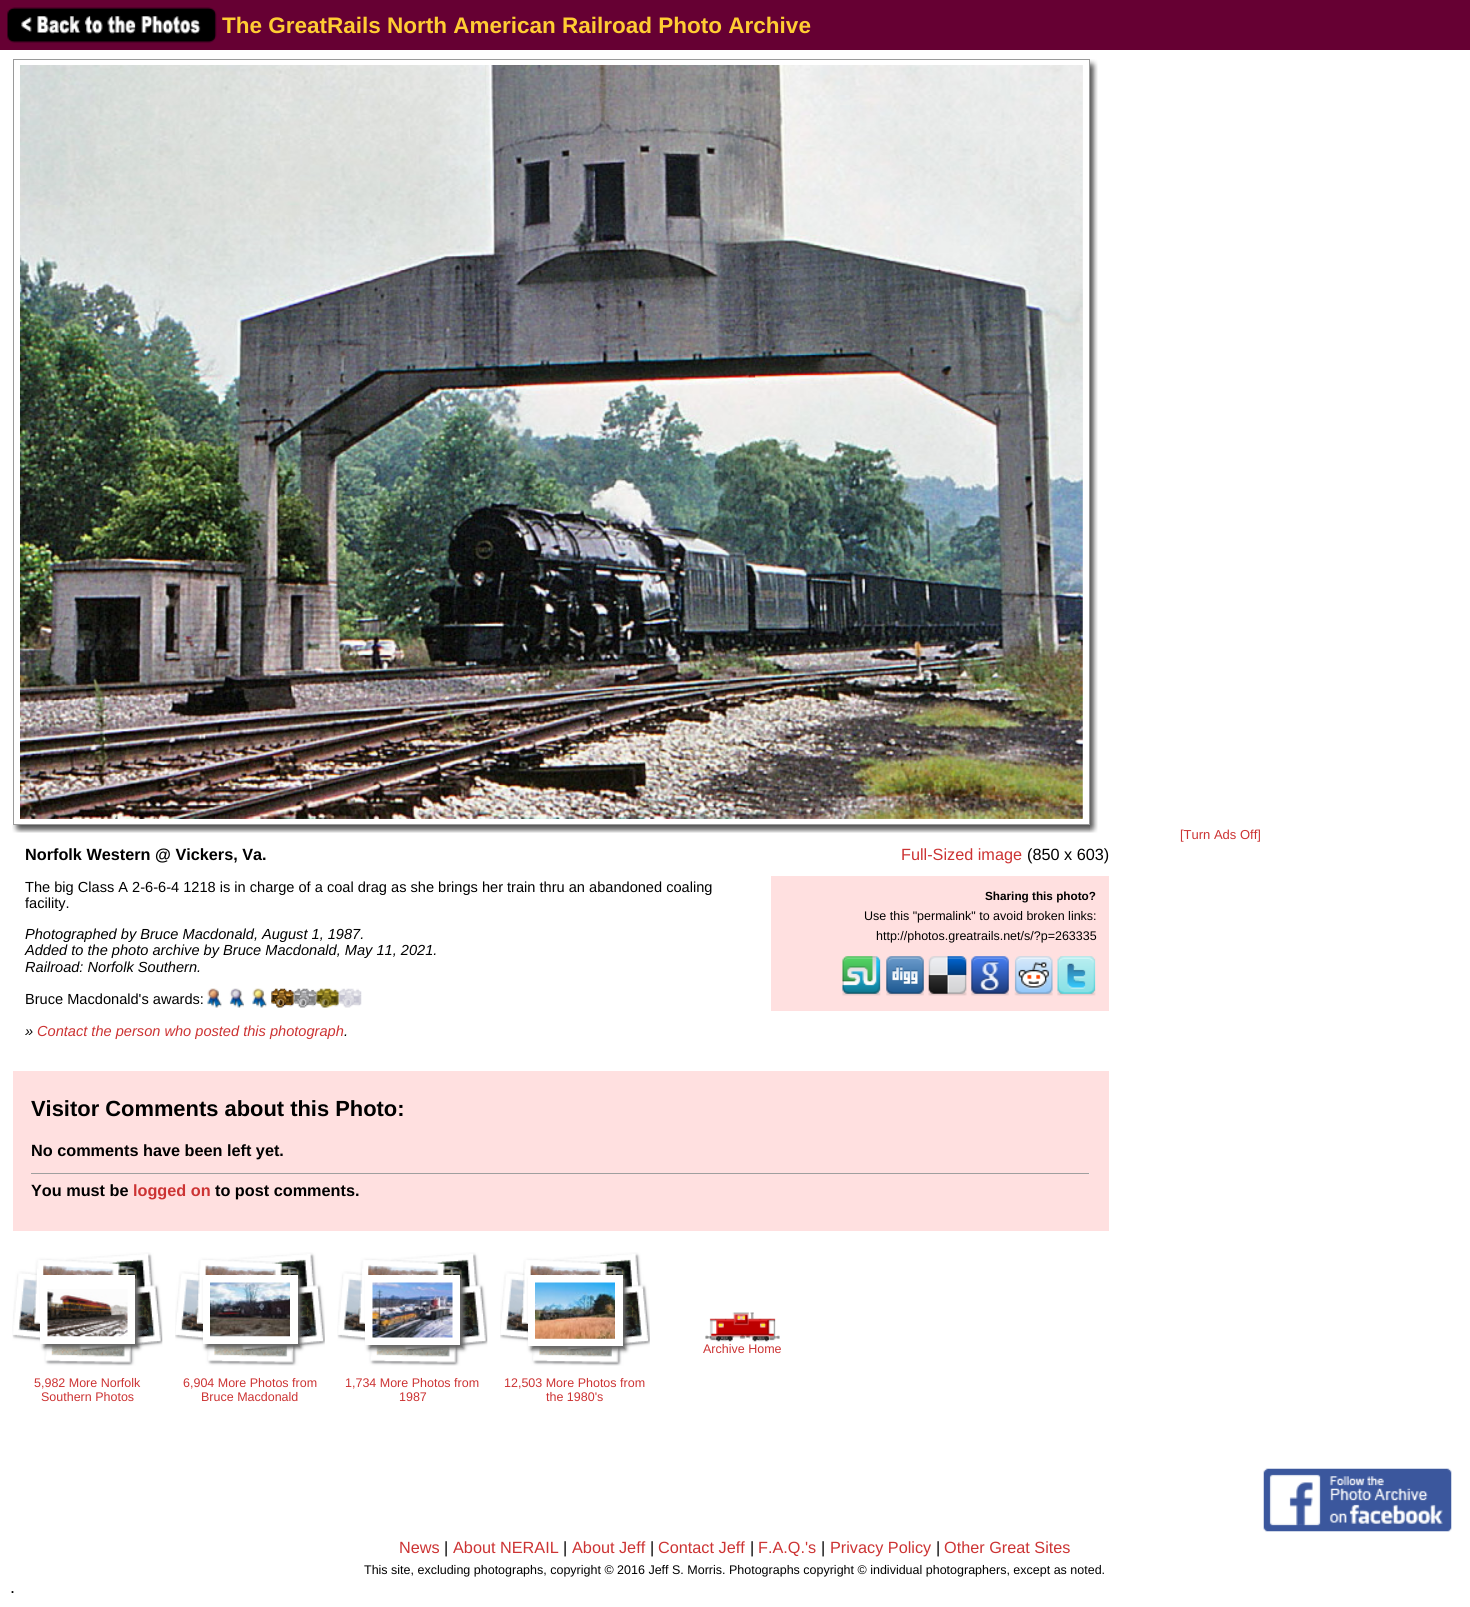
import math
import cairo



def rounded_rect(context, x, y, w, h, r):
    context.new_sub_path()
    for i, (u, v) in enumerate([(x + w - r, y + h - r), (x + r, y + h - r), (x + r, y + r), (x + w - r, y + r)]):
        context.arc(u, v, r, i * math.pi / 2, (i + 1) * math.pi / 2)
    context.close_path()


def draw_shadow(context, x, y, w, h, r, blur, alpha):
    context.push_group_with_content(cairo.Content.ALPHA)
    context.set_operator(cairo.Operator.SOURCE)
    for i in range(15, -16, -2):
        e = blur * i / 6
        if min(w, h) + 2 * e > 0:
            context.set_source_rgba(0, 0, 0, alpha * math.erfc((i - 1) / 8.5) / 2)
            rounded_rect(context, x - e, y - e, w + 2 * e, h + 2 * e, max(0, min(r + e + blur * .6, min(w, h) / 2 + e)))
            context.fill()
    context.mask(context.pop_group())


def draw_image(context, path, x, y, w, h):
    context.save()
    context.set_source_surface(cairo.ImageSurface.create_from_png(path), x, y)
    context.rectangle(x, y, w, h)
    context.fill()
    context.restore()


def draw(context):
    context.set_source_rgb(1, 1, 1)
    context.paint()
    context.set_source_rgb(102 / 255, 0, 51 / 255)
    context.rectangle(0, 0, 1470, 50)
    context.fill()
    draw_image(context, "images/1.png", 7, 7, 210, 36)
    context.rectangle(13.5, 59.5, 1076, 765)
    context.set_source_rgb(154 / 255, 154 / 255, 154 / 255)
    context.set_line_width(1)
    context.stroke()
    context.set_source_rgb(238 / 255, 238 / 255, 238 / 255)
    context.rectangle(20, 65, 1063, 754)
    context.fill()
    draw_image(context, "images/2.png", 20, 65, 1063, 754)
    draw_image(context, "images/3.png", 20, 289, 1063, 530)
    draw_image(context, "images/4.png", 1090, 59, 8, 766)
    draw_image(context, "images/5.png", 12, 825, 1078, 8)
    draw_image(context, "images/6.png", 1090, 825, 8, 8)
    draw_image(context, "images/7.png", 207, 988, 15, 20)
    draw_image(context, "images/8.png", 229, 988, 15, 20)
    draw_image(context, "images/9.png", 252, 988, 15, 20)
    draw_image(context, "images/10.png", 271, 988, 23, 20)
    draw_image(context, "images/11.png", 293, 988, 24, 20)
    draw_image(context, "images/12.png", 316, 988, 23, 20)
    draw_image(context, "images/13.png", 338, 988, 24, 20)
    context.set_source_rgb(1, 224 / 255, 224 / 255)
    context.rectangle(771, 876, 338, 135)
    context.fill()
    draw_image(context, "images/14.png", 842, 956, 39, 40)
    draw_image(context, "images/15.png", 886, 956, 38, 40)
    draw_image(context, "images/16.png", 928, 956, 39, 40)
    draw_image(context, "images/17.png", 971, 956, 38, 40)
    draw_image(context, "images/18.png", 1014, 956, 39, 40)
    draw_image(context, "images/19.png", 1057, 956, 39, 40)
    context.rectangle(13, 1071, 1096, 160)
    context.fill()
    context.set_source_rgb(159 / 255, 159 / 255, 159 / 255)
    context.rectangle(31, 1173, 1059, 1)
    context.fill()
    context.set_source_rgb(238 / 255, 238 / 255, 238 / 255)
    context.rectangle(1089, 1173, 1, 1)
    context.fill()
    draw_image(context, "images/20.png", 705, 1312, 75, 30)
    draw_image(context, "images/21.png", 12, 1252, 151, 114)
    context.set_source_rgb(102 / 255, 102 / 255, 102 / 255)
    draw_shadow(context, 44, 1279, 95, 69, 0, 2, 1)
    context.set_source_rgb(1, 1, 1)
    context.rectangle(40, 1275, 95, 69)
    context.fill()
    draw_image(context, "images/22.png", 47, 1289, 81, 48)
    draw_image(context, "images/23.png", 175, 1252, 150, 114)
    context.set_source_rgb(102 / 255, 102 / 255, 102 / 255)
    draw_shadow(context, 206, 1279, 95, 69, 0, 2, 1)
    context.set_source_rgb(1, 1, 1)
    context.rectangle(203, 1275, 95, 69)
    context.fill()
    draw_image(context, "images/24.png", 210, 1282, 80, 55)
    draw_image(context, "images/25.png", 337, 1252, 151, 114)
    context.set_source_rgb(102 / 255, 102 / 255, 102 / 255)
    draw_shadow(context, 369, 1279, 95, 70, 0, 2, 1)
    context.set_source_rgb(1, 1, 1)
    context.rectangle(365, 1275, 95, 70)
    context.fill()
    draw_image(context, "images/26.png", 372, 1282, 81, 56)
    draw_image(context, "images/27.png", 500, 1252, 150, 114)
    context.set_source_rgb(102 / 255, 102 / 255, 102 / 255)
    draw_shadow(context, 531, 1279, 95, 71, 0, 2, 1)
    context.set_source_rgb(1, 1, 1)
    context.rectangle(528, 1275, 95, 71)
    context.fill()
    draw_image(context, "images/28.png", 535, 1282, 80, 57)
    draw_image(context, "images/29.png", 1263, 1468, 189, 64)
    context.select_font_face("Liberation Sans", cairo.FontSlant.NORMAL, cairo.FontWeight.BOLD)
    context.set_font_size(22.5)
    context.set_source_rgb(1, 204 / 255, 51 / 255)
    context.move_to(222, 33)
    context.show_text("The GreatRails North American Railroad Photo Archive")
    context.select_font_face("Liberation Sans")
    context.set_font_size(13)
    context.set_source_rgb(204 / 255, 51 / 255, 51 / 255)
    context.move_to(1180, 839)
    context.show_text("[Turn Ads Off]")
    context.select_font_face("Liberation Sans", cairo.FontSlant.NORMAL, cairo.FontWeight.BOLD)
    context.set_font_size(16.25)
    context.set_source_rgb(0, 0, 0)
    context.move_to(25, 860)
    context.show_text("Norfolk Western @ Vickers, Va.")
    context.select_font_face("Liberation Sans")
    context.set_font_size(14.6)
    context.move_to(25, 892)
    context.show_text("The big Class A 2-6-6-4 1218 is in charge of a coal drag as she brings her train thru an abandoned coaling")
    context.move_to(25, 908)
    context.show_text("facility.")
    context.select_font_face("Liberation Sans", cairo.FontSlant.ITALIC)
    context.move_to(25, 939)
    context.show_text("Photographed by Bruce Macdonald, August 1, 1987.")
    context.move_to(25, 955)
    context.show_text("Added to the photo archive by Bruce Macdonald, May 11, 2021.")
    context.move_to(25, 972)
    context.show_text("Railroad: Norfolk Southern.")
    context.select_font_face("Liberation Sans")
    context.move_to(25, 1004)
    context.show_text("Bruce Macdonald's awards:")
    context.select_font_face("Liberation Sans", cairo.FontSlant.ITALIC)
    context.move_to(25, 1036)
    context.show_text("»")
    context.set_source_rgb(204 / 255, 51 / 255, 51 / 255)
    context.move_to(37, 1036)
    context.show_text("Contact the person who posted this photograph")
    context.set_source_rgb(0, 0, 0)
    context.move_to(344, 1036)
    context.show_text(".")
    context.select_font_face("Liberation Sans")
    context.set_font_size(16.25)
    context.set_source_rgb(204 / 255, 51 / 255, 51 / 255)
    context.move_to(901, 860)
    context.show_text("Full-Sized image")
    context.set_source_rgb(0, 0, 0)
    context.move_to(1027, 860)
    context.show_text("(850 x 603)")
    context.select_font_face("Liberation Sans", cairo.FontSlant.NORMAL, cairo.FontWeight.BOLD)
    context.set_font_size(11.75)
    context.move_to(985, 900)
    context.show_text("Sharing this photo?")
    context.select_font_face("Liberation Sans")
    context.set_font_size(12.5)
    context.move_to(864, 920)
    context.show_text("Use this \"permalink\" to avoid broken links:")
    context.move_to(876, 940)
    context.show_text("http://photos.greatrails.net/s/?p=263335")
    context.select_font_face("Liberation Sans", cairo.FontSlant.NORMAL, cairo.FontWeight.BOLD)
    context.set_font_size(21.9)
    context.move_to(31, 1116)
    context.show_text("Visitor Comments about this Photo:")
    context.set_font_size(16.25)
    context.move_to(31, 1156)
    context.show_text("No comments have been left yet.")
    context.move_to(31, 1196)
    context.show_text("You must be")
    context.set_source_rgb(204 / 255, 51 / 255, 51 / 255)
    context.move_to(133, 1196)
    context.show_text("logged on")
    context.set_source_rgb(0, 0, 0)
    context.move_to(215, 1196)
    context.show_text("to post comments.")
    context.select_font_face("Liberation Sans")
    context.set_font_size(12.5)
    context.set_source_rgb(204 / 255, 51 / 255, 51 / 255)
    context.move_to(703, 1353)
    context.show_text("Archive Home")
    context.move_to(34, 1387)
    context.show_text("5,982 More Norfolk")
    context.move_to(41, 1401)
    context.show_text("Southern Photos")
    context.move_to(183, 1387)
    context.show_text("6,904 More Photos from")
    context.move_to(201, 1401)
    context.show_text("Bruce Macdonald")
    context.move_to(345, 1387)
    context.show_text("1,734 More Photos from")
    context.move_to(399, 1401)
    context.show_text("1987")
    context.move_to(504, 1387)
    context.show_text("12,503 More Photos from")
    context.move_to(546, 1401)
    context.show_text("the 1980's")
    context.set_font_size(16.25)
    context.move_to(399, 1553)
    context.show_text("News")
    context.set_source_rgb(0, 0, 0)
    context.move_to(444, 1553)
    context.show_text("|")
    context.set_source_rgb(204 / 255, 51 / 255, 51 / 255)
    context.move_to(453, 1553)
    context.show_text("About NERAIL")
    context.set_source_rgb(0, 0, 0)
    context.move_to(563, 1553)
    context.show_text("|")
    context.set_source_rgb(204 / 255, 51 / 255, 51 / 255)
    context.move_to(572, 1553)
    context.show_text("About Jeff")
    context.set_source_rgb(0, 0, 0)
    context.move_to(650, 1553)
    context.show_text("|")
    context.set_source_rgb(204 / 255, 51 / 255, 51 / 255)
    context.move_to(658, 1553)
    context.show_text("Contact Jeff")
    context.set_source_rgb(0, 0, 0)
    context.move_to(750, 1553)
    context.show_text("|")
    context.set_source_rgb(204 / 255, 51 / 255, 51 / 255)
    context.move_to(758, 1553)
    context.show_text("F.A.Q.'s")
    context.set_source_rgb(0, 0, 0)
    context.move_to(821, 1553)
    context.show_text("|")
    context.set_source_rgb(204 / 255, 51 / 255, 51 / 255)
    context.move_to(830, 1553)
    context.show_text("Privacy Policy")
    context.set_source_rgb(0, 0, 0)
    context.move_to(936, 1553)
    context.show_text("|")
    context.set_source_rgb(204 / 255, 51 / 255, 51 / 255)
    context.move_to(944, 1553)
    context.show_text("Other Great Sites")
    context.set_font_size(12.5)
    context.set_source_rgb(0, 0, 0)
    context.move_to(364, 1574)
    context.show_text("This site, excluding photographs, copyright © 2016 Jeff S. Morris. Photographs copyright © individual photographers, except as noted.")
    context.set_font_size(18)
    context.move_to(10, 1593)
    context.show_text(".")


surface = cairo.ImageSurface(cairo.Format.RGB24, 1470, 1607)
context = cairo.Context(surface)
options = cairo.FontOptions()
options.set_hint_metrics(cairo.HintMetrics.OFF)
options.set_hint_style(cairo.HintStyle.NONE)
context.set_font_options(options)
context.set_miter_limit(4)
draw(context)
surface.write_to_png("out.png")
